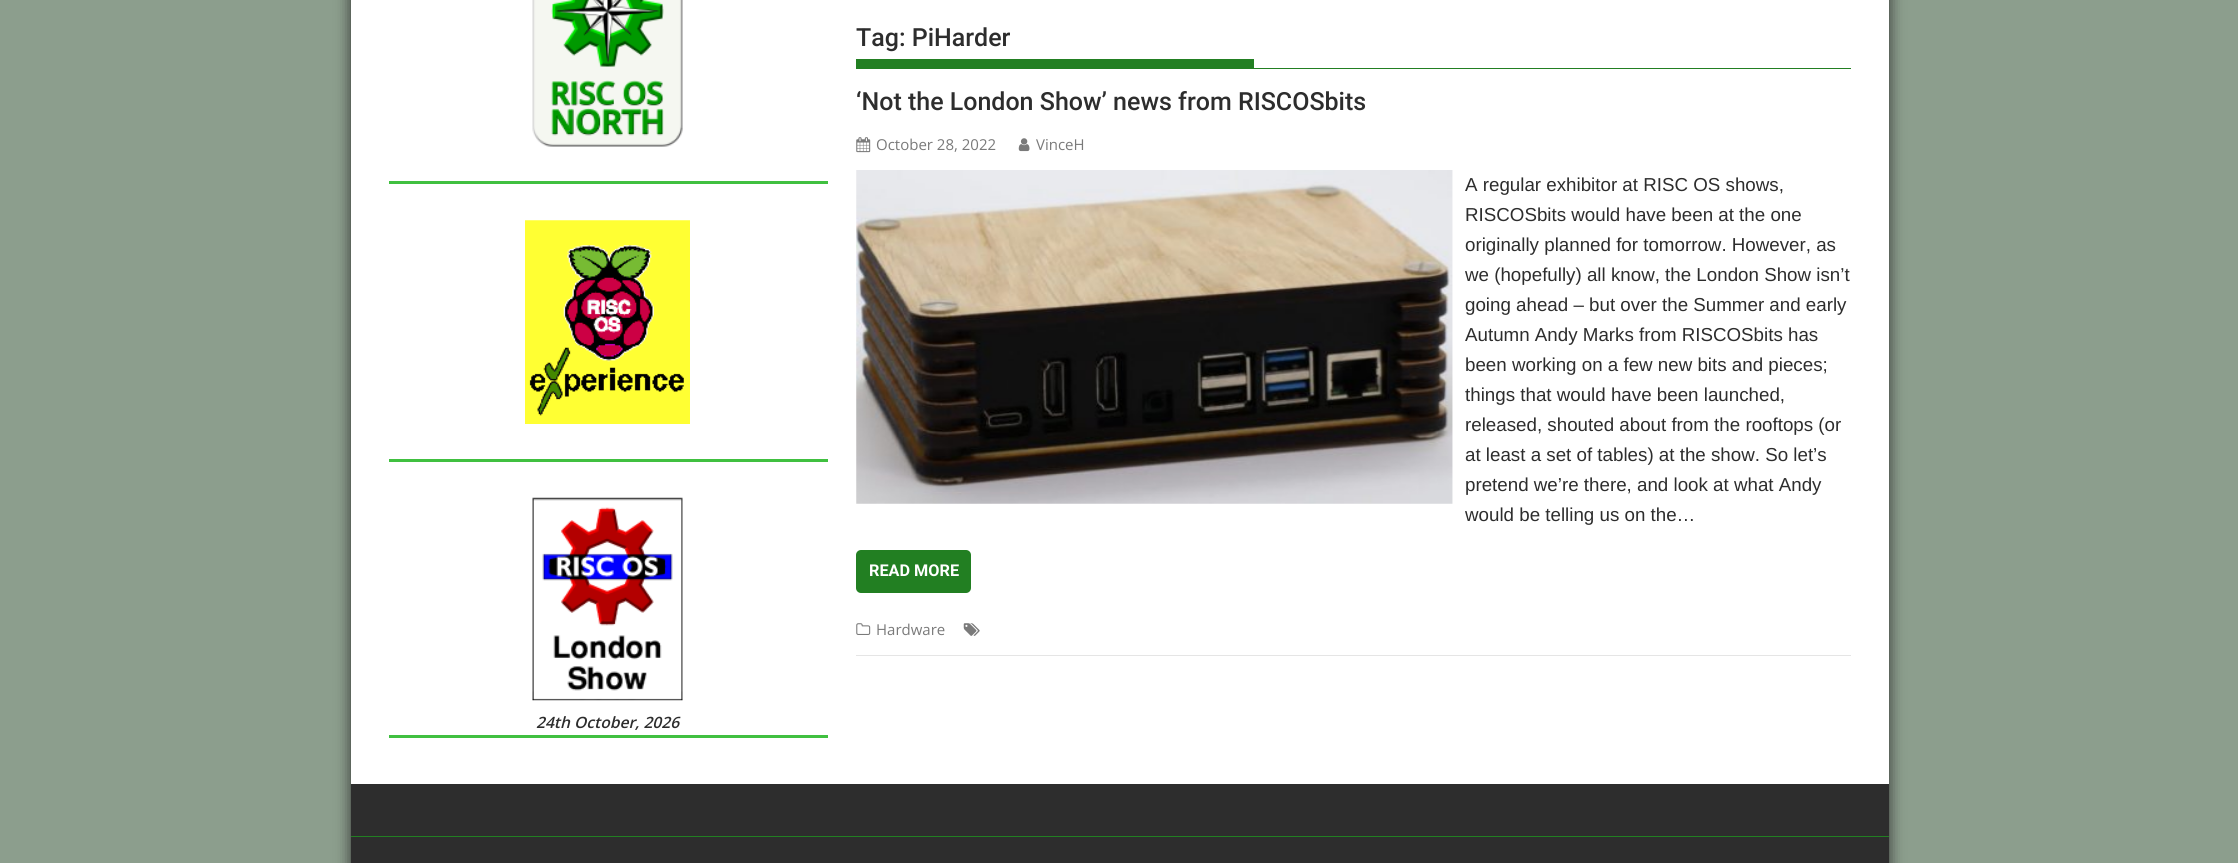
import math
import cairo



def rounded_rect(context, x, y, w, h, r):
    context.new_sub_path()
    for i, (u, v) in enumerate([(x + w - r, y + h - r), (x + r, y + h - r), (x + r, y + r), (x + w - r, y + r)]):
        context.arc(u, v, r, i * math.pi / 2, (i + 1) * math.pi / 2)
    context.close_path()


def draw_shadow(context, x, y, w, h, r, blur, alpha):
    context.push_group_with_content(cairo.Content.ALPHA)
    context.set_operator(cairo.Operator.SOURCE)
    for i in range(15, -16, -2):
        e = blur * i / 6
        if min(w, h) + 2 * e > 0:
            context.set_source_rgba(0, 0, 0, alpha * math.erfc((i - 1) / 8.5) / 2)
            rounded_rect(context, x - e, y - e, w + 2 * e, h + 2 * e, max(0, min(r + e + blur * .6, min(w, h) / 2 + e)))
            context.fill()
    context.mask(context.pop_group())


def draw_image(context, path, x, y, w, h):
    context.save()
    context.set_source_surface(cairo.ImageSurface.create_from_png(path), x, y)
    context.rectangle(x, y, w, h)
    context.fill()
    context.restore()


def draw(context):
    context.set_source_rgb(140 / 255, 158 / 255, 141 / 255)
    context.paint()
    context.set_source_rgb(45 / 255, 45 / 255, 45 / 255)
    draw_shadow(context, 351, -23, 1538, 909, 0, 7.5, 1)
    context.set_source_rgb(1, 1, 1)
    context.rectangle(351, 0, 1538, 784)
    context.fill()
    context.set_source_rgb(34 / 255, 127 / 255, 34 / 255)
    context.rectangle(856, 68, 995, 1)
    context.fill()
    context.rectangle(856, 59, 398, 9)
    context.fill()
    context.set_source_rgb(229 / 255, 229 / 255, 229 / 255)
    context.rectangle(856, 655, 995, 1)
    context.fill()
    draw_image(context, "images/1.png", 856, 137, 15, 16)
    draw_image(context, "images/2.png", 1018, 138, 12, 14)
    draw_image(context, "images/3.png", 856, 170, 597, 334)
    context.set_source_rgb(34 / 255, 127 / 255, 34 / 255)
    rounded_rect(context, 856, 550, 115, 43, 5)
    context.fill()
    draw_image(context, "images/4.png", 856, 623, 15, 12)
    draw_image(context, "images/5.png", 963, 623, 17, 13)
    context.set_source_rgb(64 / 255, 192 / 255, 64 / 255)
    context.rectangle(389, 181, 439, 3)
    context.fill()
    draw_image(context, "images/6.png", 532, 0, 151, 147)
    context.rectangle(389, 459, 439, 3)
    context.fill()
    draw_image(context, "images/7.png", 525, 220, 165, 204)
    context.rectangle(389, 735, 439, 3)
    context.fill()
    draw_image(context, "images/8.png", 532, 497, 151, 204)
    context.set_source_rgb(45 / 255, 45 / 255, 45 / 255)
    context.rectangle(351, 784, 1538, 79)
    context.fill()
    context.set_source_rgb(34 / 255, 127 / 255, 34 / 255)
    context.rectangle(351, 836, 1538, 1)
    context.fill()
    context.select_font_face("Roboto Medium")
    context.set_font_size(25)
    context.set_source_rgb(45 / 255, 45 / 255, 45 / 255)
    context.move_to(856, 46)
    context.show_text("Tag: PiHarder")
    context.move_to(856, 110)
    context.show_text("‘Not the London Show’ news from RISCOSbits")
    context.select_font_face("Open Sans")
    context.set_font_size(15)
    context.set_source_rgb(122 / 255, 122 / 255, 122 / 255)
    context.move_to(876, 150)
    context.show_text("October 28, 2022")
    context.move_to(1036, 150)
    context.show_text("VinceH")
    context.select_font_face("Liberation Sans")
    context.set_font_size(18.75)
    context.set_source_rgb(45 / 255, 45 / 255, 45 / 255)
    context.move_to(1465, 191)
    context.show_text("A regular exhibitor at RISC OS shows,")
    context.move_to(1465, 221)
    context.show_text("RISCOSbits would have been at the one")
    context.move_to(1465, 251)
    context.show_text("originally planned for tomorrow. However, as")
    context.move_to(1465, 281)
    context.show_text("we (hopefully) all know, the London Show isn’t")
    context.move_to(1465, 311)
    context.show_text("going ahead – but over the Summer and early")
    context.move_to(1465, 341)
    context.show_text("Autumn Andy Marks from RISCOSbits has")
    context.move_to(1465, 371)
    context.show_text("been working on a few new bits and pieces;")
    context.move_to(1465, 401)
    context.show_text("things that would have been launched,")
    context.move_to(1465, 431)
    context.show_text("released, shouted about from the rooftops (or")
    context.move_to(1465, 461)
    context.show_text("at least a set of tables) at the show. So let’s")
    context.move_to(1465, 491)
    context.show_text("pretend we’re there, and look at what Andy")
    context.move_to(1465, 521)
    context.show_text("would be telling us on the…")
    context.select_font_face("Roboto", cairo.FontSlant.NORMAL, cairo.FontWeight.BOLD)
    context.set_font_size(16.25)
    context.set_source_rgb(1, 1, 1)
    context.move_to(869, 576)
    context.show_text("READ MORE")
    context.select_font_face("Open Sans")
    context.set_font_size(15)
    context.set_source_rgb(122 / 255, 122 / 255, 122 / 255)
    context.move_to(876, 635)
    context.show_text("Hardware")
    context.select_font_face("Open Sans SemiBold", cairo.FontSlant.ITALIC)
    context.set_font_size(15.6)
    context.set_source_rgb(45 / 255, 45 / 255, 45 / 255)
    context.move_to(536, 728)
    context.show_text("24th October, 2026")


surface = cairo.ImageSurface(cairo.Format.RGB24, 2238, 863)
context = cairo.Context(surface)
options = cairo.FontOptions()
options.set_hint_metrics(cairo.HintMetrics.OFF)
options.set_hint_style(cairo.HintStyle.NONE)
context.set_font_options(options)
context.set_miter_limit(4)
draw(context)
surface.write_to_png("out.png")
